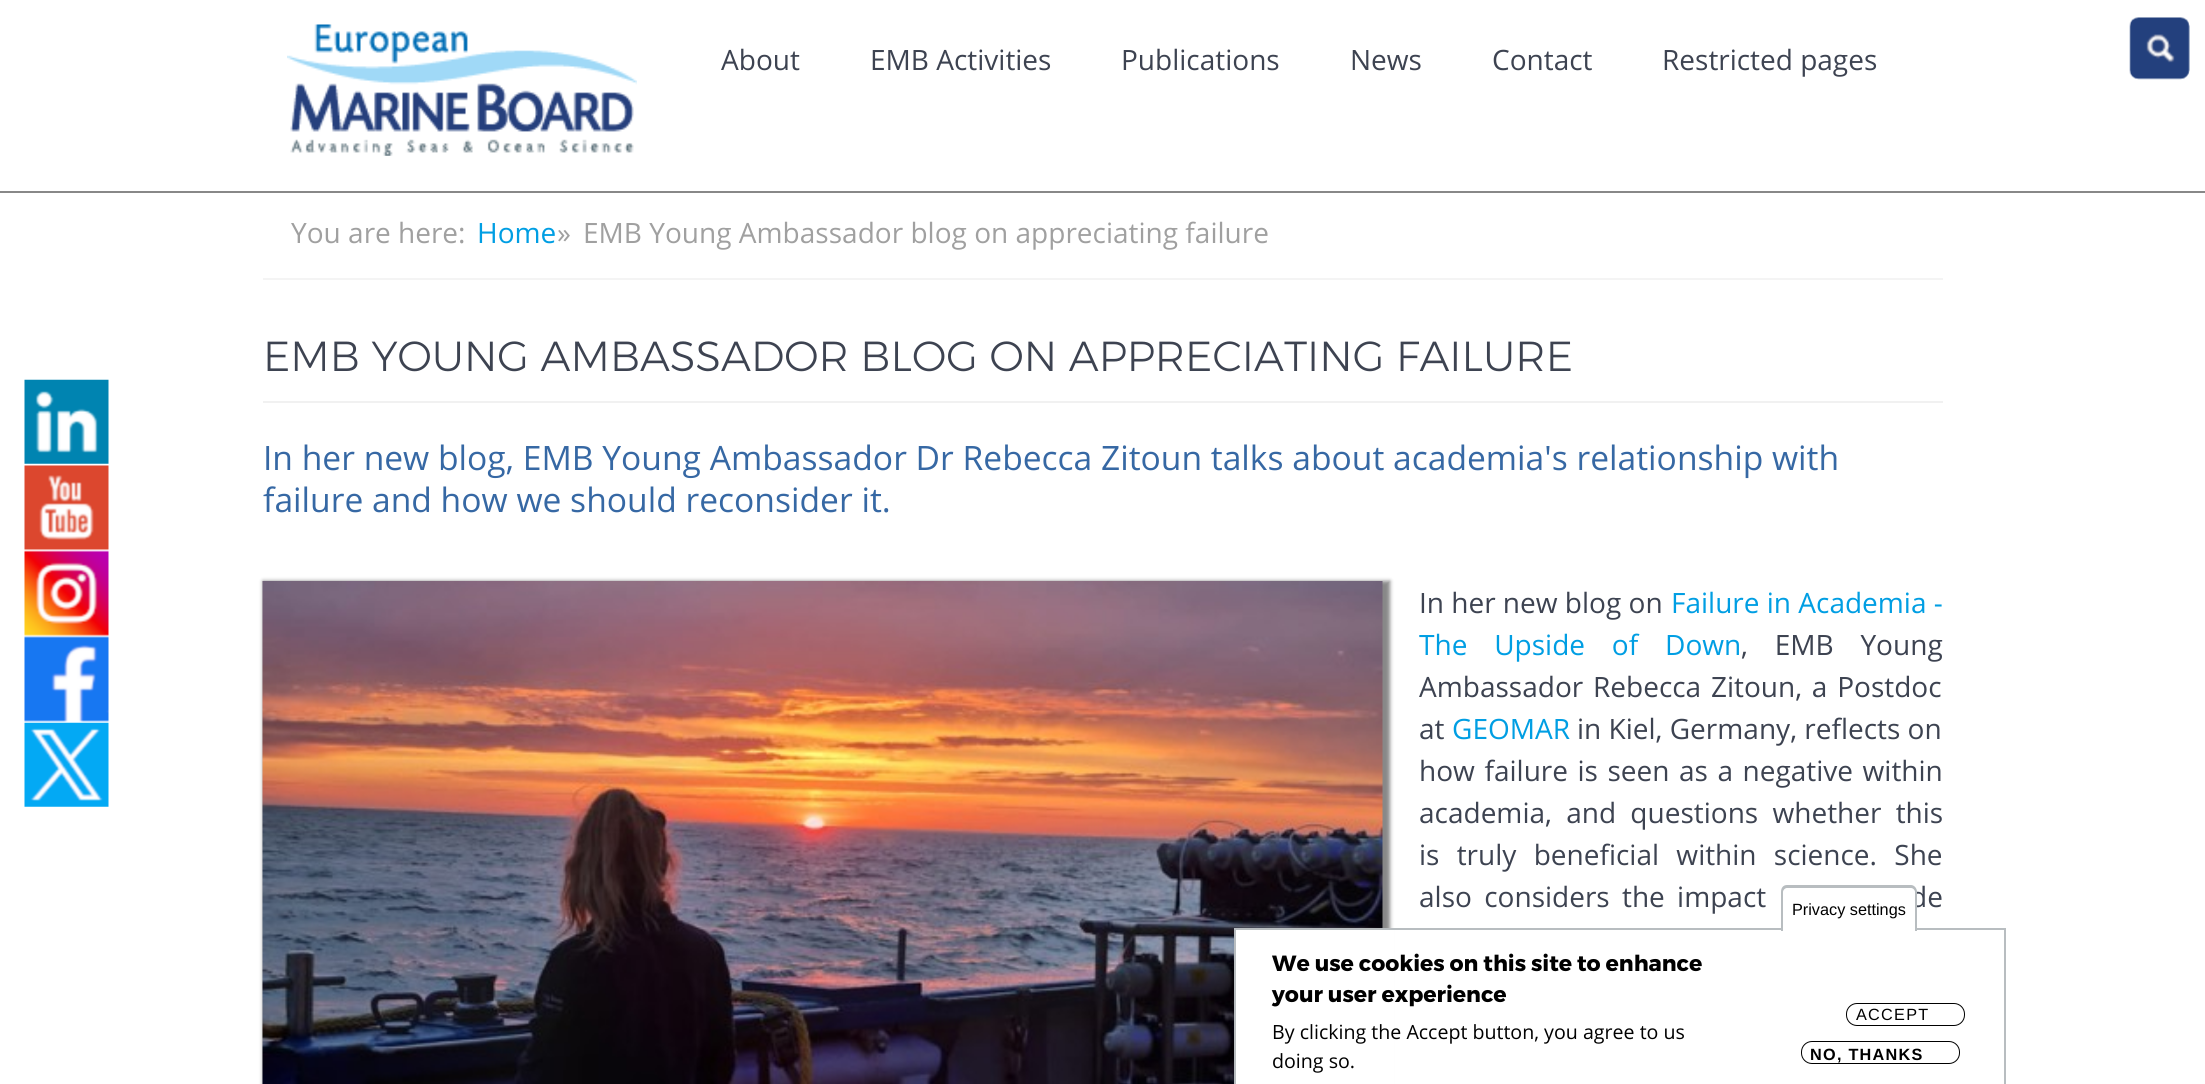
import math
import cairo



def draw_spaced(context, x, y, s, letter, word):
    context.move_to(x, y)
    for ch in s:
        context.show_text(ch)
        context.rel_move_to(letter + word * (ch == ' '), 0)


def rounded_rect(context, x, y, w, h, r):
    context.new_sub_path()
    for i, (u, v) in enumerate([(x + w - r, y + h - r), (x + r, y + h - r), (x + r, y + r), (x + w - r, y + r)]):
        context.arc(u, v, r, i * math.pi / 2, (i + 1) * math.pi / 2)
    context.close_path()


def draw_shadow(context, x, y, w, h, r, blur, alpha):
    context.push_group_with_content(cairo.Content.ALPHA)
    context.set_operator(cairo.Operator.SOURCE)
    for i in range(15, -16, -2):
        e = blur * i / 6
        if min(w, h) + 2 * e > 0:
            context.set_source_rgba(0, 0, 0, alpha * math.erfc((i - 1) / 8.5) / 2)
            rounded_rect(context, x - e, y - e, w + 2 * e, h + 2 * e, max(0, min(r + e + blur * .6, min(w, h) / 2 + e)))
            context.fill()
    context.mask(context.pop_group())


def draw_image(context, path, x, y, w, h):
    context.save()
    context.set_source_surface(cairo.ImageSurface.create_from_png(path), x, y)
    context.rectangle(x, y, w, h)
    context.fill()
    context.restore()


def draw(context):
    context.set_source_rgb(1, 1, 1)
    context.paint()
    context.set_source_rgb(136 / 255, 136 / 255, 136 / 255)
    context.rectangle(0, 191, 2205, 2)
    context.fill()
    draw_image(context, "images/1.png", 287, 24, 350, 132)
    draw_image(context, "images/2.png", 2129, 17, 61, 63)
    context.set_source_rgb(244 / 255, 244 / 255, 244 / 255)
    context.rectangle(263, 278, 1680, 2)
    context.fill()
    draw_image(context, "images/3.png", 24, 379, 85, 85)
    draw_image(context, "images/4.png", 24, 465, 85, 85)
    draw_image(context, "images/5.png", 24, 550, 85, 86)
    draw_image(context, "images/6.png", 24, 636, 85, 86)
    draw_image(context, "images/7.png", 24, 722, 85, 85)
    context.set_source_rgb(241 / 255, 241 / 255, 241 / 255)
    context.rectangle(263, 401, 1680, 2)
    context.fill()
    context.set_source_rgb(136 / 255, 136 / 255, 136 / 255)
    draw_shadow(context, 263, 581, 1127, 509, 0, 2, 1)
    draw_image(context, "images/8.png", 262, 581, 1121, 503)
    context.set_source_rgb(1, 1, 1)
    context.rectangle(1236, 930, 158, 154)
    context.fill()
    context.rectangle(1235, 929, 770, 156)
    context.set_source_rgb(184 / 255, 189 / 255, 192 / 255)
    context.stroke()
    rounded_rect(context, 1846.5, 1003.5, 118, 22, 10.5)
    context.set_source_rgb(0, 0, 0)
    context.set_line_width(1)
    context.stroke()
    rounded_rect(context, 1801.5, 1041.5, 158, 22, 10.5)
    context.stroke()
    context.select_font_face("Open Sans")
    context.set_font_size(28)
    context.set_source_rgb(61 / 255, 67 / 255, 81 / 255)
    context.move_to(721, 70)
    context.show_text("About")
    context.move_to(870, 70)
    context.show_text("EMB Activities")
    context.move_to(1121, 70)
    context.show_text("Publications")
    context.move_to(1350, 70)
    context.show_text("News")
    context.move_to(1492, 70)
    context.show_text("Contact")
    context.move_to(1662, 70)
    context.show_text("Restricted pages")
    context.set_source_rgb(160 / 255, 160 / 255, 160 / 255)
    context.move_to(291, 243)
    context.show_text("You are here:")
    context.set_source_rgb(0, 158 / 255, 227 / 255)
    context.move_to(477, 243)
    context.show_text("Home")
    context.set_source_rgb(160 / 255, 160 / 255, 160 / 255)
    context.move_to(557, 243)
    context.show_text("»")
    context.move_to(583, 243)
    context.show_text("EMB Young Ambassador blog on appreciating failure")
    context.select_font_face("Montserrat Light")
    context.set_font_size(42)
    context.set_source_rgb(61 / 255, 67 / 255, 81 / 255)
    context.move_to(263, 371)
    context.show_text("EMB YOUNG AMBASSADOR BLOG ON APPRECIATING FAILURE")
    context.select_font_face("Open Sans")
    context.set_font_size(33.6)
    context.set_source_rgb(54 / 255, 104 / 255, 164 / 255)
    context.move_to(263, 470)
    context.show_text("In her new blog, EMB Young Ambassador Dr Rebecca Zitoun talks about academia's relationship with")
    context.move_to(263, 512)
    context.show_text("failure and how we should reconsider it.")
    context.set_font_size(28)
    context.set_source_rgb(61 / 255, 67 / 255, 81 / 255)
    context.move_to(1419, 613)
    context.show_text("In her new blog on")
    context.set_source_rgb(0, 158 / 255, 227 / 255)
    context.move_to(1671, 613)
    context.show_text("Failure in Academia -")
    draw_spaced(context, 1419, 655, "The Upside of Down", 0, 19.5)
    context.set_source_rgb(61 / 255, 67 / 255, 81 / 255)
    draw_spaced(context, 1741, 655, ", EMB Young", 0, 19.5)
    draw_spaced(context, 1419, 697, "Ambassador Rebecca Zitoun, a Postdoc", 0, 2.5)
    context.move_to(1419, 739)
    context.show_text("at")
    context.set_source_rgb(0, 158 / 255, 227 / 255)
    context.move_to(1452, 739)
    context.show_text("GEOMAR")
    context.set_source_rgb(61 / 255, 67 / 255, 81 / 255)
    context.move_to(1577, 739)
    context.show_text("in Kiel, Germany, reflects on")
    draw_spaced(context, 1419, 781, "how failure is seen as a negative within", 0, 2.25)
    draw_spaced(context, 1419, 823, "academia, and questions whether this", 0, 7)
    draw_spaced(context, 1419, 865, "is truly beneficial within science. She", 0, 10)
    draw_spaced(context, 1419, 907, "also considers the impact", 0, 5)
    draw_spaced(context, 1910, 907, "de", 0, 5)
    context.set_source_rgb(1, 1, 1)
    context.new_path()
    context.move_to(1787, 887)
    context.line_to(1911, 887)
    context.curve_to(1913, 887, 1915, 889, 1915, 891)
    context.line_to(1915, 931)
    context.line_to(1783, 931)
    context.line_to(1783, 891)
    context.curve_to(1783, 889, 1785, 887, 1787, 887)
    context.close_path()
    context.fill()
    context.set_source_rgb(184 / 255, 189 / 255, 192 / 255)
    context.set_fill_rule(cairo.FillRule.EVEN_ODD)
    context.new_path()
    context.move_to(1787, 885)
    context.line_to(1911, 885)
    context.curve_to(1914, 885, 1917, 888, 1917, 892)
    context.line_to(1917, 931)
    context.line_to(1781, 931)
    context.line_to(1781, 892)
    context.curve_to(1781, 888, 1783, 885, 1787, 885)
    context.close_path()
    context.move_to(1787, 888)
    context.line_to(1911, 888)
    context.curve_to(1913, 888, 1915, 890, 1915, 892)
    context.line_to(1915, 931)
    context.line_to(1783, 931)
    context.line_to(1783, 892)
    context.curve_to(1783, 890, 1785, 888, 1787, 888)
    context.close_path()
    context.fill()
    context.select_font_face("Liberation Sans")
    context.set_font_size(16.25)
    context.set_source_rgb(0, 0, 0)
    context.move_to(1792, 915)
    context.show_text("Privacy settings")
    context.select_font_face("Montserrat", cairo.FontSlant.NORMAL, cairo.FontWeight.BOLD)
    context.set_font_size(22)
    context.move_to(1272, 971)
    context.show_text("We use cookies on this site to enhance")
    context.move_to(1272, 1002)
    context.show_text("your user experience")
    context.select_font_face("Open Sans")
    context.set_font_size(19.6)
    context.move_to(1272, 1039)
    context.show_text("By clicking the Accept button, you agree to us")
    context.move_to(1272, 1068)
    context.show_text("doing so.")
    context.select_font_face("Liberation Sans")
    context.set_font_size(16.25)
    draw_spaced(context, 1856, 1020, "ACCEPT", 1.25, 0)
    context.select_font_face("Liberation Sans", cairo.FontSlant.NORMAL, cairo.FontWeight.BOLD)
    draw_spaced(context, 1810, 1060, "NO, THANKS", 1.25, 0)


surface = cairo.ImageSurface(cairo.Format.RGB24, 2205, 1084)
context = cairo.Context(surface)
options = cairo.FontOptions()
options.set_hint_metrics(cairo.HintMetrics.OFF)
options.set_hint_style(cairo.HintStyle.NONE)
context.set_font_options(options)
context.set_miter_limit(4)
draw(context)
surface.write_to_png("out.png")
